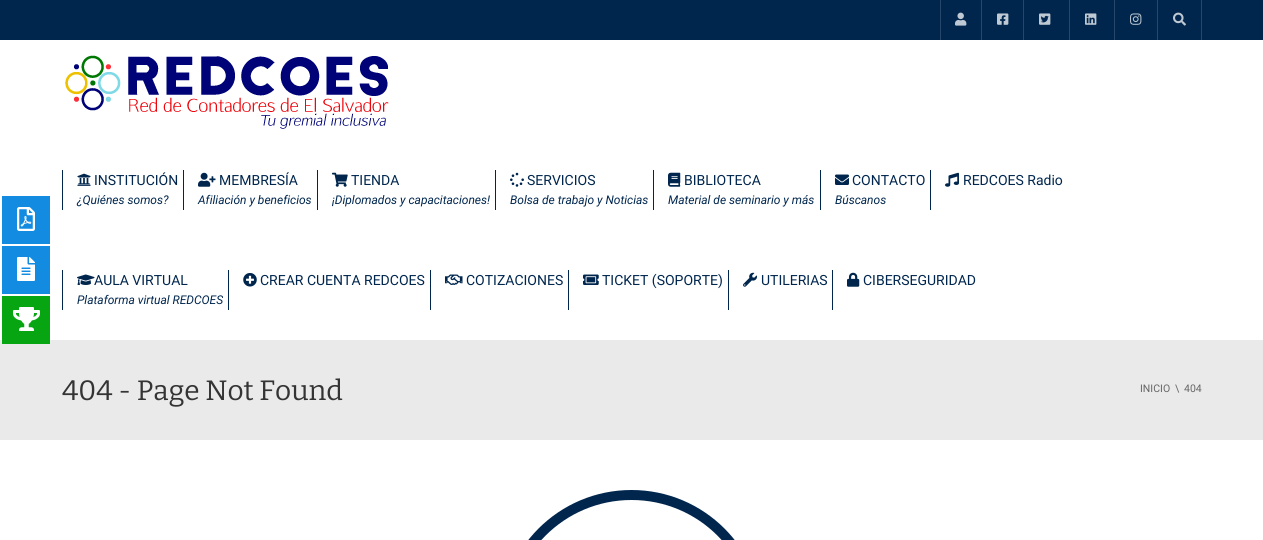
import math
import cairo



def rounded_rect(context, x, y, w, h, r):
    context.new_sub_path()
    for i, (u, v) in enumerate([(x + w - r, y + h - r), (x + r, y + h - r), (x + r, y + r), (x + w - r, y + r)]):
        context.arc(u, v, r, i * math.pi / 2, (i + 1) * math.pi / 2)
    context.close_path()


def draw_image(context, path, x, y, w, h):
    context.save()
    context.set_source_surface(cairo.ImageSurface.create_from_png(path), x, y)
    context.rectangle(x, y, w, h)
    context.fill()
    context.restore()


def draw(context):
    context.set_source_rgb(1, 1, 1)
    context.paint()
    context.set_source_rgb(18 / 255, 139 / 255, 224 / 255)
    context.rectangle(2, 196, 48, 48)
    context.fill()
    draw_image(context, "images/1.png", 17, 207, 18, 24)
    context.rectangle(2, 246, 48, 48)
    context.fill()
    draw_image(context, "images/2.png", 17, 257, 18, 24)
    context.set_source_rgb(234 / 255, 234 / 255, 234 / 255)
    context.rectangle(0, 340, 1263, 100)
    context.fill()
    context.set_source_rgb(8 / 255, 165 / 255, 18 / 255)
    context.rectangle(2, 296, 48, 48)
    context.fill()
    draw_image(context, "images/3.png", 13, 307, 27, 24)
    context.set_source_rgb(0, 38 / 255, 78 / 255)
    context.rectangle(0, 0, 1263, 40)
    context.fill()
    context.set_source_rgb(38 / 255, 71 / 255, 105 / 255)
    context.rectangle(940, 0, 1, 40)
    context.fill()
    draw_image(context, "images/4.png", 955, 12, 12, 14)
    context.rectangle(981, 0, 1, 40)
    context.fill()
    draw_image(context, "images/5.png", 997, 13, 12, 12)
    context.rectangle(1023, 0, 1, 40)
    context.fill()
    draw_image(context, "images/6.png", 1039, 13, 12, 12)
    context.rectangle(1069, 0, 1, 40)
    context.fill()
    draw_image(context, "images/7.png", 1085, 13, 12, 12)
    context.rectangle(1114, 0, 1, 40)
    context.fill()
    draw_image(context, "images/8.png", 1130, 13, 12, 12)
    context.rectangle(1201, 0, 1, 40)
    context.fill()
    context.rectangle(1157, 0, 1, 40)
    context.fill()
    draw_image(context, "images/9.png", 1173, 12, 13, 14)
    draw_image(context, "images/10.png", 65, 55, 324, 74)
    context.set_source_rgb(0, 38 / 255, 78 / 255)
    context.rectangle(62, 170, 1, 40)
    context.fill()
    draw_image(context, "images/11.png", 77, 173, 14, 13)
    context.rectangle(183, 170, 1, 40)
    context.fill()
    draw_image(context, "images/12.png", 198, 172, 18, 15)
    context.rectangle(317, 170, 1, 40)
    context.fill()
    draw_image(context, "images/13.png", 332, 172, 16, 15)
    context.rectangle(495, 170, 1, 40)
    context.fill()
    draw_image(context, "images/14.png", 510, 172, 14, 15)
    context.rectangle(653, 170, 1, 40)
    context.fill()
    draw_image(context, "images/15.png", 668, 172, 13, 15)
    context.rectangle(820, 170, 1, 40)
    context.fill()
    draw_image(context, "images/16.png", 835, 174, 14, 11)
    context.rectangle(930, 170, 1, 40)
    context.fill()
    draw_image(context, "images/17.png", 945, 172, 14, 15)
    context.rectangle(62, 270, 1, 40)
    context.fill()
    draw_image(context, "images/18.png", 77, 274, 18, 11)
    context.rectangle(228, 270, 1, 40)
    context.fill()
    draw_image(context, "images/19.png", 243, 273, 14, 14)
    context.rectangle(430, 270, 1, 40)
    context.fill()
    draw_image(context, "images/20.png", 445, 274, 18, 11)
    context.rectangle(568, 270, 1, 40)
    context.fill()
    draw_image(context, "images/21.png", 583, 274, 16, 11)
    context.rectangle(728, 270, 1, 40)
    context.fill()
    draw_image(context, "images/22.png", 743, 272, 14, 15)
    context.rectangle(832, 270, 1, 40)
    context.fill()
    draw_image(context, "images/23.png", 847, 272, 13, 15)
    rounded_rect(context, 505, 495, 253, 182, 126.5)
    context.set_line_width(10)
    context.stroke()
    context.select_font_face("Roboto")
    context.set_font_size(14)
    context.move_to(94, 185)
    context.show_text("INSTITUCIÓN")
    context.select_font_face("Roboto", cairo.FontSlant.ITALIC)
    context.set_font_size(12)
    context.move_to(77, 204)
    context.show_text("¿Quiénes somos?")
    context.select_font_face("Roboto")
    context.set_font_size(14)
    context.move_to(219, 185)
    context.show_text("MEMBRESÍA")
    context.select_font_face("Roboto", cairo.FontSlant.ITALIC)
    context.set_font_size(12)
    context.move_to(198, 204)
    context.show_text("Afiliación y beneficios")
    context.select_font_face("Roboto")
    context.set_font_size(14)
    context.move_to(351, 185)
    context.show_text("TIENDA")
    context.select_font_face("Roboto", cairo.FontSlant.ITALIC)
    context.set_font_size(12)
    context.move_to(332, 204)
    context.show_text("¡Diplomados y capacitaciones!")
    context.select_font_face("Roboto")
    context.set_font_size(14)
    context.move_to(527, 185)
    context.show_text("SERVICIOS")
    context.select_font_face("Roboto", cairo.FontSlant.ITALIC)
    context.set_font_size(12)
    context.move_to(510, 204)
    context.show_text("Bolsa de trabajo y Noticias")
    context.select_font_face("Roboto")
    context.set_font_size(14)
    context.move_to(684, 185)
    context.show_text("BIBLIOTECA")
    context.select_font_face("Roboto", cairo.FontSlant.ITALIC)
    context.set_font_size(12)
    context.move_to(668, 204)
    context.show_text("Material de seminario y más")
    context.select_font_face("Roboto")
    context.set_font_size(14)
    context.move_to(852, 185)
    context.show_text("CONTACTO")
    context.select_font_face("Roboto", cairo.FontSlant.ITALIC)
    context.set_font_size(12)
    context.move_to(835, 204)
    context.show_text("Búscanos")
    context.select_font_face("Roboto")
    context.set_font_size(14)
    context.move_to(963, 185)
    context.show_text("REDCOES Radio")
    context.move_to(94, 285)
    context.show_text("AULA VIRTUAL")
    context.select_font_face("Roboto", cairo.FontSlant.ITALIC)
    context.set_font_size(12)
    context.move_to(77, 304)
    context.show_text("Plataforma virtual REDCOES")
    context.select_font_face("Roboto")
    context.set_font_size(14)
    context.move_to(260, 285)
    context.show_text("CREAR CUENTA REDCOES")
    context.move_to(466, 285)
    context.show_text("COTIZACIONES")
    context.move_to(602, 285)
    context.show_text("TICKET (SOPORTE)")
    context.move_to(761, 285)
    context.show_text("UTILERIAS")
    context.move_to(863, 285)
    context.show_text("CIBERSEGURIDAD")
    context.select_font_face("Bitter Thin")
    context.set_font_size(28)
    context.set_source_rgb(52 / 255, 52 / 255, 52 / 255)
    context.move_to(62, 400)
    context.show_text("404 - Page Not Found")
    context.select_font_face("Roboto")
    context.set_font_size(10.5)
    context.set_source_rgb(102 / 255, 102 / 255, 102 / 255)
    context.move_to(1140, 392)
    context.show_text("INICIO")
    context.move_to(1175, 392)
    context.show_text("\\")
    context.move_to(1184, 392)
    context.show_text("404")


surface = cairo.ImageSurface(cairo.Format.RGB24, 1263, 540)
context = cairo.Context(surface)
options = cairo.FontOptions()
options.set_hint_metrics(cairo.HintMetrics.OFF)
options.set_hint_style(cairo.HintStyle.NONE)
context.set_font_options(options)
context.set_miter_limit(4)
draw(context)
surface.write_to_png("out.png")
